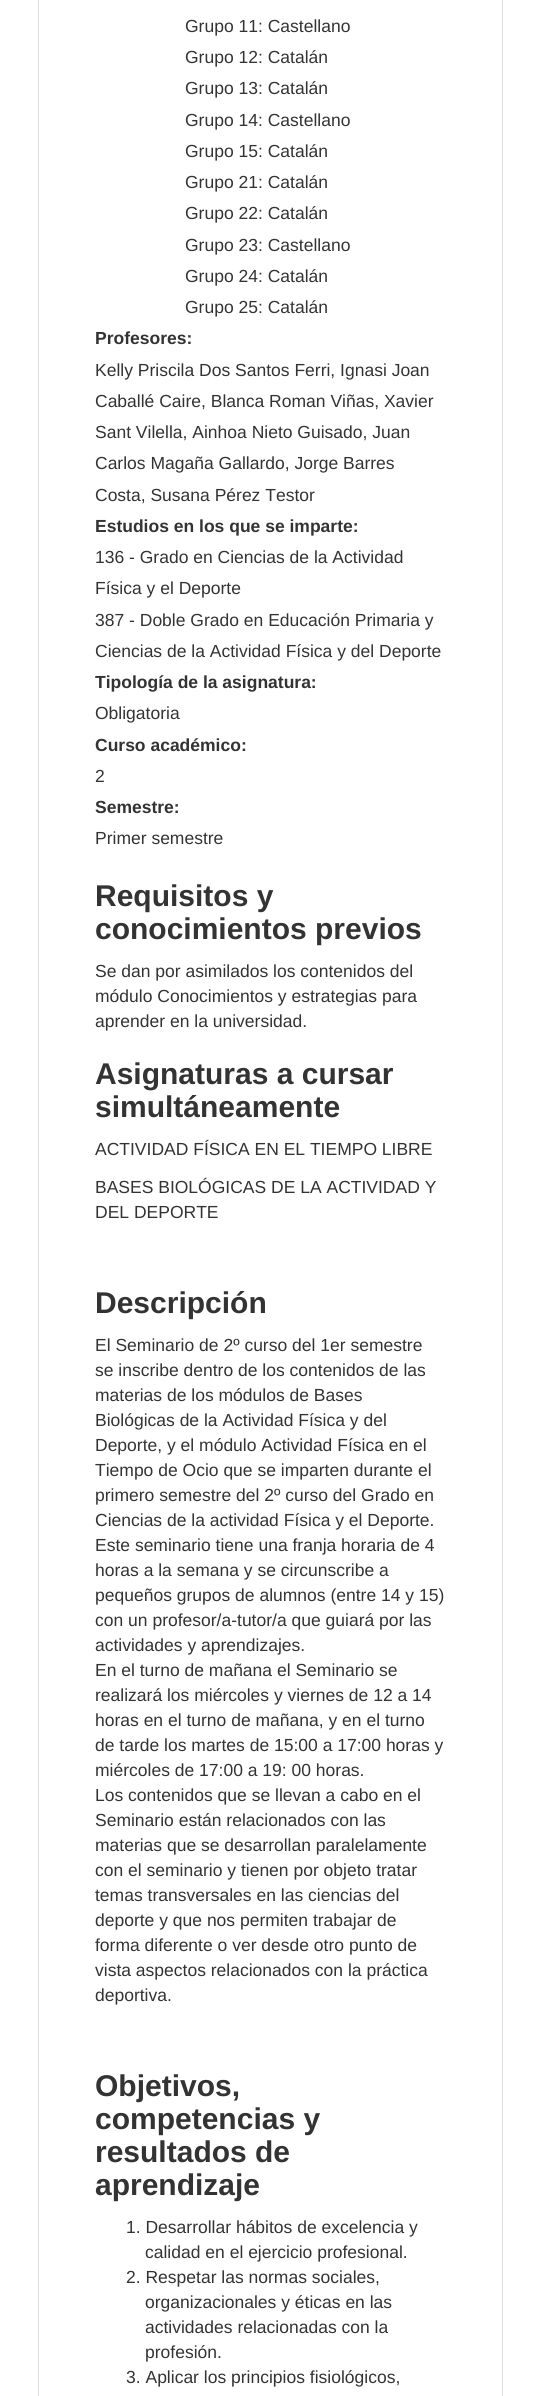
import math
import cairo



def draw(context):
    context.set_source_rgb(1, 1, 1)
    context.paint()
    context.rectangle(38.5, -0.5, 464, 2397)
    context.set_source_rgb(221 / 255, 221 / 255, 221 / 255)
    context.set_line_width(1)
    context.stroke()
    context.select_font_face("Liberation Sans")
    context.set_font_size(17.5)
    context.set_source_rgb(51 / 255, 51 / 255, 51 / 255)
    context.move_to(185, 32)
    context.show_text("Grupo 11: Castellano")
    context.move_to(185, 63)
    context.show_text("Grupo 12: Catalán")
    context.move_to(185, 94)
    context.show_text("Grupo 13: Catalán")
    context.move_to(185, 126)
    context.show_text("Grupo 14: Castellano")
    context.move_to(185, 157)
    context.show_text("Grupo 15: Catalán")
    context.move_to(185, 188)
    context.show_text("Grupo 21: Catalán")
    context.move_to(185, 219)
    context.show_text("Grupo 22: Catalán")
    context.move_to(185, 251)
    context.show_text("Grupo 23: Castellano")
    context.move_to(185, 282)
    context.show_text("Grupo 24: Catalán")
    context.move_to(185, 313)
    context.show_text("Grupo 25: Catalán")
    context.select_font_face("Liberation Sans", cairo.FontSlant.NORMAL, cairo.FontWeight.BOLD)
    context.move_to(95, 344)
    context.show_text("Profesores:")
    context.select_font_face("Liberation Sans")
    context.move_to(95, 376)
    context.show_text("Kelly Priscila Dos Santos Ferri, Ignasi Joan")
    context.move_to(95, 407)
    context.show_text("Caballé Caire, Blanca Roman Viñas, Xavier")
    context.move_to(95, 438)
    context.show_text("Sant Vilella, Ainhoa Nieto Guisado, Juan")
    context.move_to(95, 469)
    context.show_text("Carlos Magaña Gallardo, Jorge Barres")
    context.move_to(95, 501)
    context.show_text("Costa, Susana Pérez Testor")
    context.select_font_face("Liberation Sans", cairo.FontSlant.NORMAL, cairo.FontWeight.BOLD)
    context.move_to(95, 532)
    context.show_text("Estudios en los que se imparte:")
    context.select_font_face("Liberation Sans")
    context.move_to(95, 563)
    context.show_text("136 - Grado en Ciencias de la Actividad")
    context.move_to(95, 594)
    context.show_text("Física y el Deporte")
    context.move_to(95, 626)
    context.show_text("387 - Doble Grado en Educación Primaria y")
    context.move_to(95, 657)
    context.show_text("Ciencias de la Actividad Física y del Deporte")
    context.select_font_face("Liberation Sans", cairo.FontSlant.NORMAL, cairo.FontWeight.BOLD)
    context.move_to(95, 688)
    context.show_text("Tipología de la asignatura:")
    context.select_font_face("Liberation Sans")
    context.move_to(95, 719)
    context.show_text("Obligatoria")
    context.select_font_face("Liberation Sans", cairo.FontSlant.NORMAL, cairo.FontWeight.BOLD)
    context.move_to(95, 751)
    context.show_text("Curso académico:")
    context.select_font_face("Liberation Sans")
    context.move_to(95, 782)
    context.show_text("2")
    context.select_font_face("Liberation Sans", cairo.FontSlant.NORMAL, cairo.FontWeight.BOLD)
    context.move_to(95, 813)
    context.show_text("Semestre:")
    context.select_font_face("Liberation Sans")
    context.move_to(95, 844)
    context.show_text("Primer semestre")
    context.select_font_face("Liberation Sans", cairo.FontSlant.NORMAL, cairo.FontWeight.BOLD)
    context.set_font_size(30)
    context.move_to(95, 906)
    context.show_text("Requisitos y")
    context.move_to(95, 939)
    context.show_text("conocimientos previos")
    context.select_font_face("Liberation Sans")
    context.set_font_size(17.5)
    context.move_to(95, 977)
    context.show_text("Se dan por asimilados los contenidos del")
    context.move_to(95, 1002)
    context.show_text("módulo Conocimientos y estrategias para")
    context.move_to(95, 1027)
    context.show_text("aprender en la universidad.")
    context.select_font_face("Liberation Sans", cairo.FontSlant.NORMAL, cairo.FontWeight.BOLD)
    context.set_font_size(30)
    context.move_to(95, 1084)
    context.show_text("Asignaturas a cursar")
    context.move_to(95, 1117)
    context.show_text("simultáneamente")
    context.select_font_face("Liberation Sans")
    context.set_font_size(17.5)
    context.move_to(95, 1155)
    context.show_text("ACTIVIDAD FÍSICA EN EL TIEMPO LIBRE")
    context.move_to(95, 1193)
    context.show_text("BASES BIOLÓGICAS DE LA ACTIVIDAD Y")
    context.move_to(95, 1218)
    context.show_text("DEL DEPORTE")
    context.select_font_face("Liberation Sans", cairo.FontSlant.NORMAL, cairo.FontWeight.BOLD)
    context.set_font_size(30)
    context.move_to(95, 1313)
    context.show_text("Descripción")
    context.select_font_face("Liberation Sans")
    context.set_font_size(17.5)
    context.move_to(95, 1351)
    context.show_text("El Seminario de 2º curso del 1er semestre")
    context.move_to(95, 1376)
    context.show_text("se inscribe dentro de los contenidos de las")
    context.move_to(95, 1401)
    context.show_text("materias de los módulos de Bases")
    context.move_to(95, 1426)
    context.show_text("Biológicas de la Actividad Física y del")
    context.move_to(95, 1451)
    context.show_text("Deporte, y el módulo Actividad Física en el")
    context.move_to(95, 1476)
    context.show_text("Tiempo de Ocio que se imparten durante el")
    context.move_to(95, 1501)
    context.show_text("primero semestre del 2º curso del Grado en")
    context.move_to(95, 1526)
    context.show_text("Ciencias de la actividad Física y el Deporte.")
    context.move_to(95, 1551)
    context.show_text("Este seminario tiene una franja horaria de 4")
    context.move_to(95, 1576)
    context.show_text("horas a la semana y se circunscribe a")
    context.move_to(95, 1601)
    context.show_text("pequeños grupos de alumnos (entre 14 y 15)")
    context.move_to(95, 1626)
    context.show_text("con un profesor/a-tutor/a que guiará por las")
    context.move_to(95, 1651)
    context.show_text("actividades y aprendizajes.")
    context.move_to(95, 1676)
    context.show_text("En el turno de mañana el Seminario se")
    context.move_to(95, 1701)
    context.show_text("realizará los miércoles y viernes de 12 a 14")
    context.move_to(95, 1726)
    context.show_text("horas en el turno de mañana, y en el turno")
    context.move_to(95, 1751)
    context.show_text("de tarde los martes de 15:00 a 17:00 horas y")
    context.move_to(95, 1776)
    context.show_text("miércoles de 17:00 a 19: 00 horas.")
    context.move_to(95, 1801)
    context.show_text("Los contenidos que se llevan a cabo en el")
    context.move_to(95, 1826)
    context.show_text("Seminario están relacionados con las")
    context.move_to(95, 1851)
    context.show_text("materias que se desarrollan paralelamente")
    context.move_to(95, 1876)
    context.show_text("con el seminario y tienen por objeto tratar")
    context.move_to(95, 1901)
    context.show_text("temas transversales en las ciencias del")
    context.move_to(95, 1926)
    context.show_text("deporte y que nos permiten trabajar de")
    context.move_to(95, 1951)
    context.show_text("forma diferente o ver desde otro punto de")
    context.move_to(95, 1976)
    context.show_text("vista aspectos relacionados con la práctica")
    context.move_to(95, 2001)
    context.show_text("deportiva.")
    context.select_font_face("Liberation Sans", cairo.FontSlant.NORMAL, cairo.FontWeight.BOLD)
    context.set_font_size(30)
    context.move_to(95, 2096)
    context.show_text("Objetivos,")
    context.move_to(95, 2129)
    context.show_text("competencias y")
    context.move_to(95, 2162)
    context.show_text("resultados de")
    context.move_to(95, 2195)
    context.show_text("aprendizaje")
    context.select_font_face("Liberation Sans")
    context.set_font_size(17.5)
    context.move_to(126, 2233)
    context.show_text("1. Desarrollar hábitos de excelencia y")
    context.move_to(145, 2258)
    context.show_text("calidad en el ejercicio profesional.")
    context.move_to(126, 2283)
    context.show_text("2. Respetar las normas sociales,")
    context.move_to(145, 2308)
    context.show_text("organizacionales y éticas en las")
    context.move_to(145, 2333)
    context.show_text("actividades relacionadas con la")
    context.move_to(145, 2358)
    context.show_text("profesión.")
    context.move_to(126, 2383)
    context.show_text("3. Aplicar los principios fisiológicos,")


surface = cairo.ImageSurface(cairo.Format.RGB24, 539, 2396)
context = cairo.Context(surface)
options = cairo.FontOptions()
options.set_hint_metrics(cairo.HintMetrics.OFF)
options.set_hint_style(cairo.HintStyle.NONE)
context.set_font_options(options)
context.set_miter_limit(4)
draw(context)
surface.write_to_png("out.png")
